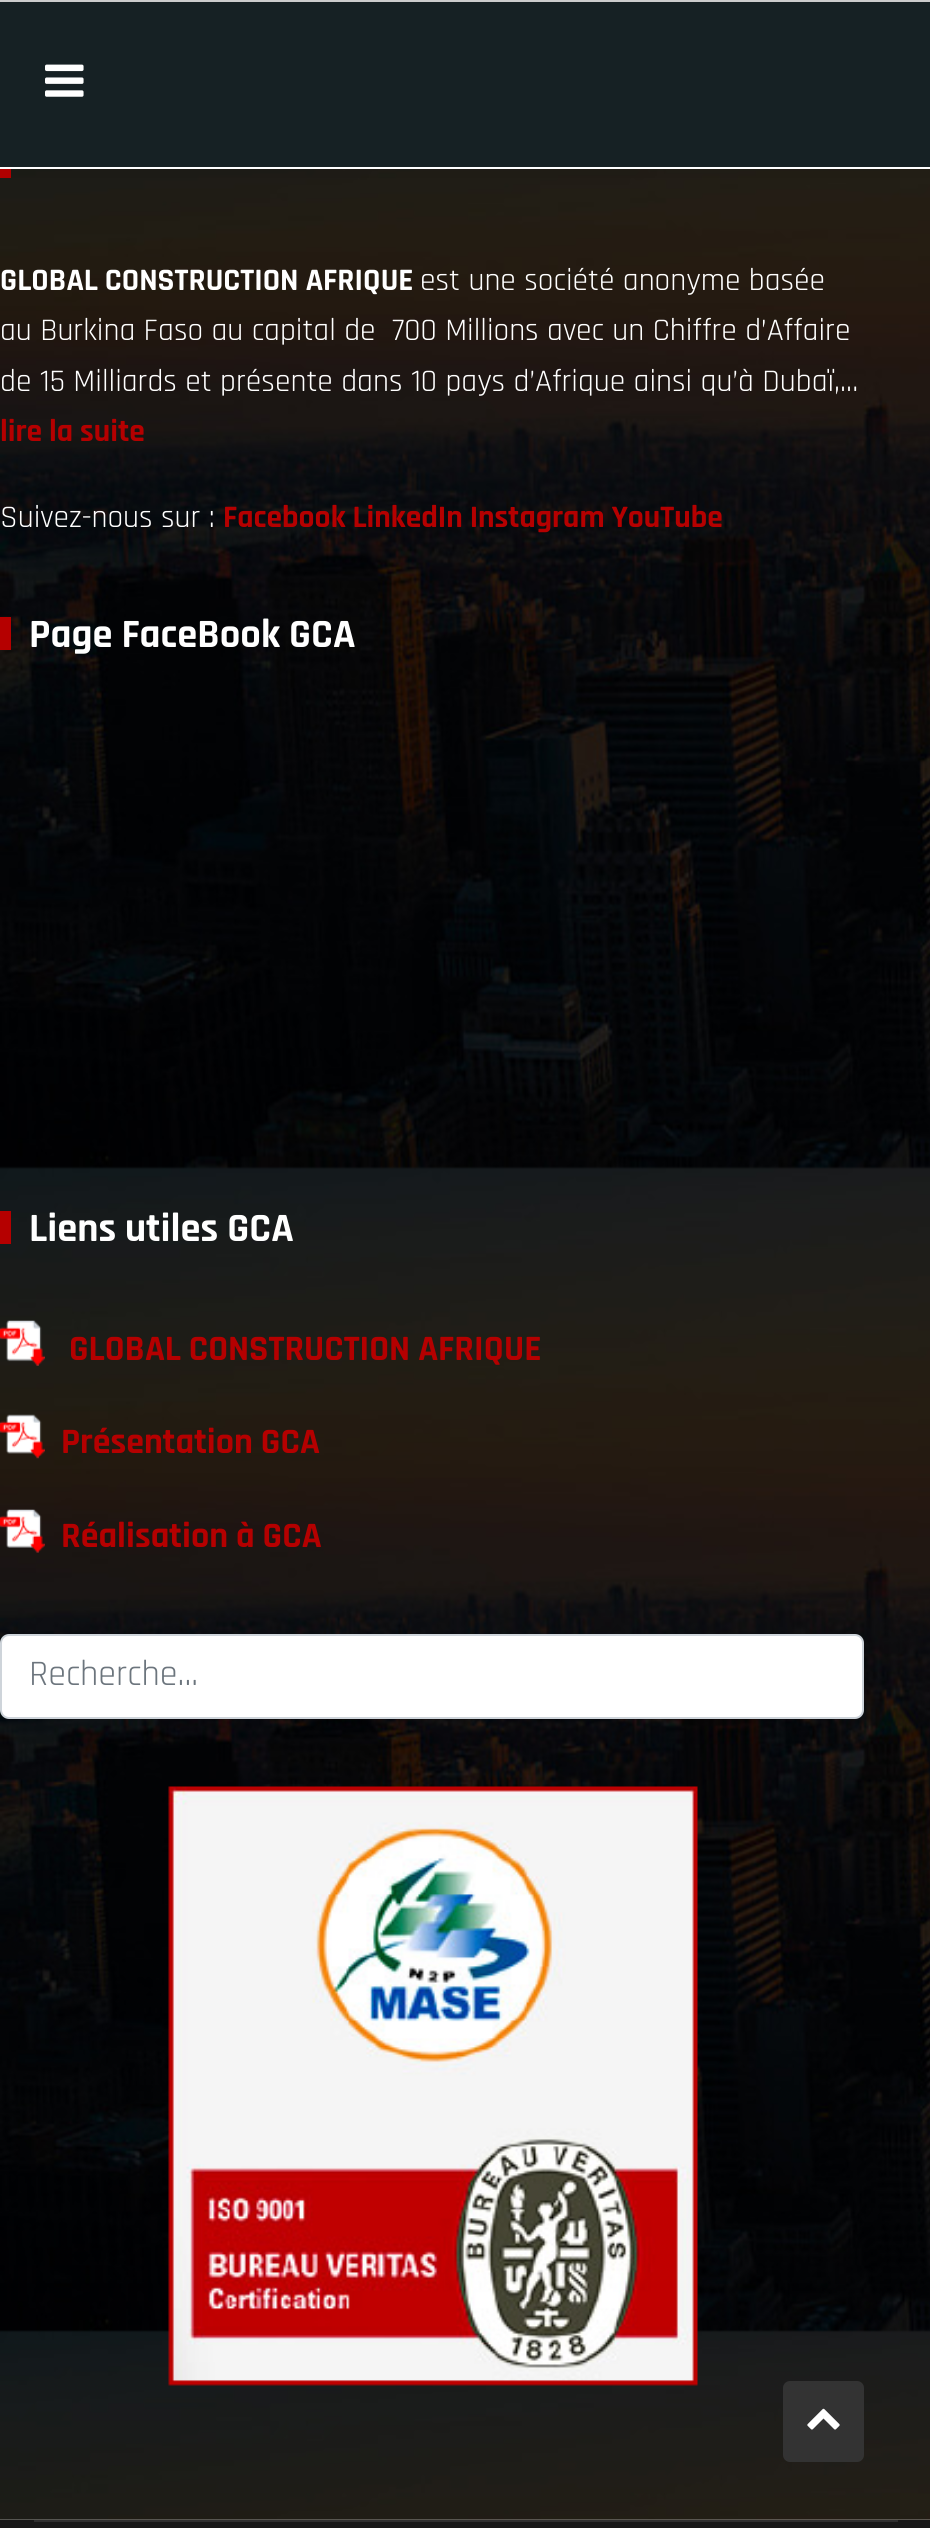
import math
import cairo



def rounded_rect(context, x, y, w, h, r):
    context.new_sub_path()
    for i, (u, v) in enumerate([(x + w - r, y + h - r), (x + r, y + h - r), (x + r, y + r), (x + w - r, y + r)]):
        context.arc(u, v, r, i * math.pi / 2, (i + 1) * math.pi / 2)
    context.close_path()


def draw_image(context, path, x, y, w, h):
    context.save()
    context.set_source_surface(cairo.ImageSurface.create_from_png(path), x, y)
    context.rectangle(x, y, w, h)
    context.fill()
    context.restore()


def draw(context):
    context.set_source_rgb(1, 1, 1)
    context.paint()
    draw_image(context, "images/2.png", 0, 169, 930, 2351)
    context.set_source_rgb(181 / 255, 0, 0)
    context.rectangle(0, 169, 11, 9)
    context.fill()
    context.set_source_rgba(0, 0, 0, 0.03)
    context.new_path()
    context.move_to(0, 169)
    context.line_to(0, 178)
    context.line_to(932, 178)
    context.line_to(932, 9)
    context.line_to(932, 169)
    context.close_path()
    context.fill()
    context.set_source_rgb(22 / 255, 33 / 255, 36 / 255)
    context.rectangle(0, 2, 930, 165)
    context.fill()
    context.set_source_rgb(204 / 255, 204 / 255, 204 / 255)
    context.rectangle(0, 0, 930, 2)
    context.fill()
    draw_image(context, "images/1.png", 45, 64, 39, 33)
    context.set_source_rgb(181 / 255, 0, 0)
    context.rectangle(0, 617, 11, 33)
    context.fill()
    context.rectangle(0, 1211, 11, 33)
    context.fill()
    draw_image(context, "images/3.png", 0, 1320, 45, 46)
    draw_image(context, "images/4.png", 0, 1414, 45, 45)
    draw_image(context, "images/5.png", 0, 1509, 45, 44)
    context.set_source_rgb(1, 1, 1)
    rounded_rect(context, 1, 1635, 862, 83, 8)
    context.fill_preserve()
    context.set_source_rgb(206 / 255, 212 / 255, 218 / 255)
    context.stroke()
    draw_image(context, "images/6.png", 168, 1786, 530, 600)
    context.set_source_rgb(23 / 255, 23 / 255, 23 / 255)
    context.rectangle(0, 2520, 930, 8)
    context.fill()
    context.set_source_rgb(46 / 255, 46 / 255, 46 / 255)
    context.rectangle(34, 2520, 864, 2)
    context.fill()
    context.set_source_rgb(51 / 255, 51 / 255, 51 / 255)
    rounded_rect(context, 783, 2381, 81, 81, 7)
    context.fill()
    draw_image(context, "images/7.png", 807, 2408, 33, 22)
    context.select_font_face("Rajdhani", cairo.FontSlant.NORMAL, cairo.FontWeight.BOLD)
    context.set_font_size(31.5)
    context.set_source_rgb(1, 1, 1)
    context.move_to(0, 290)
    context.show_text("GLOBAL CONSTRUCTION AFRIQUE")
    context.select_font_face("Rajdhani")
    context.move_to(420, 290)
    context.show_text("est une société anonyme basée")
    context.move_to(0, 340)
    context.show_text("au Burkina Faso au capital de  700 Millions avec un Chiffre d’Affaire")
    context.move_to(0, 391)
    context.show_text("de 15 Milliards et présente dans 10 pays d’Afrique ainsi qu’à Dubaï,...")
    context.select_font_face("Rajdhani", cairo.FontSlant.NORMAL, cairo.FontWeight.BOLD)
    context.set_source_rgb(181 / 255, 0, 0)
    context.move_to(0, 441)
    context.show_text("lire la suite")
    context.select_font_face("Rajdhani")
    context.set_source_rgb(1, 1, 1)
    context.move_to(0, 527)
    context.show_text("Suivez-nous sur :")
    context.select_font_face("Rajdhani", cairo.FontSlant.NORMAL, cairo.FontWeight.BOLD)
    context.set_source_rgb(181 / 255, 0, 0)
    context.move_to(223, 527)
    context.show_text("Facebook LinkedIn Instagram YouTube")
    context.set_font_size(40.5)
    context.set_source_rgb(1, 1, 1)
    context.move_to(29, 647)
    context.show_text("Page FaceBook GCA")
    context.move_to(29, 1241)
    context.show_text("Liens utiles GCA")
    context.set_font_size(36)
    context.set_source_rgb(181 / 255, 0, 0)
    context.move_to(69, 1360)
    context.show_text("GLOBAL CONSTRUCTION AFRIQUE")
    context.move_to(61, 1453)
    context.show_text("Présentation GCA")
    context.move_to(61, 1547)
    context.show_text("Réalisation à GCA")
    context.select_font_face("Rajdhani")
    context.set_source_rgb(108 / 255, 117 / 255, 125 / 255)
    context.move_to(29, 1685)
    context.show_text("Recherche...")


surface = cairo.ImageSurface(cairo.Format.RGB24, 930, 2528)
context = cairo.Context(surface)
options = cairo.FontOptions()
options.set_hint_metrics(cairo.HintMetrics.OFF)
options.set_hint_style(cairo.HintStyle.NONE)
context.set_font_options(options)
context.set_miter_limit(4)
draw(context)
surface.write_to_png("out.png")
